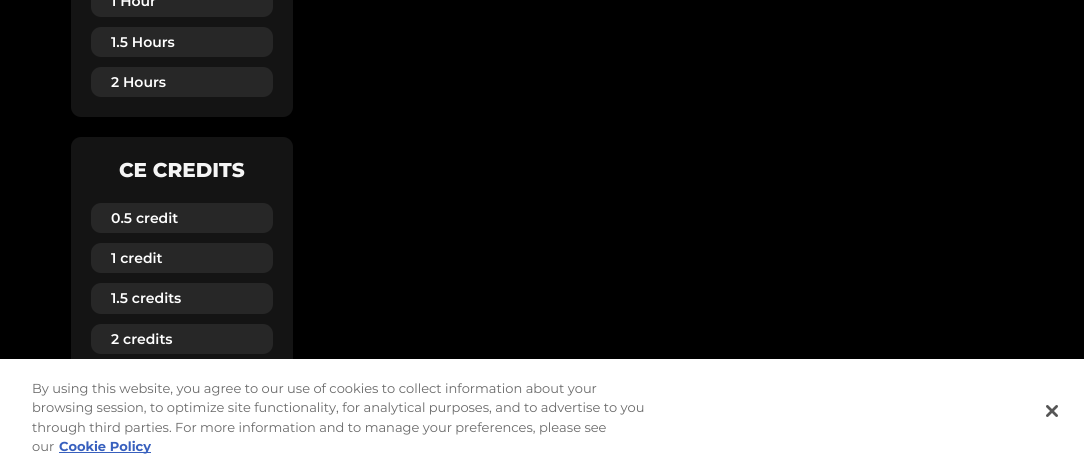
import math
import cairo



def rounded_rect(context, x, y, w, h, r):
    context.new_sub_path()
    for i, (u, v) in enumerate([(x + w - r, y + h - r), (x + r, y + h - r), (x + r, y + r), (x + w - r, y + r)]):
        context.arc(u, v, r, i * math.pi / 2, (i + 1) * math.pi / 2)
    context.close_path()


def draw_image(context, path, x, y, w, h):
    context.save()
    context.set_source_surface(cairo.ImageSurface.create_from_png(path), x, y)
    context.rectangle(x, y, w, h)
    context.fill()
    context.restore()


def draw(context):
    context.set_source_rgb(0, 0, 0)
    context.paint()
    context.set_source_rgb(20 / 255, 20 / 255, 20 / 255)
    rounded_rect(context, 71, -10, 222, 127, 10)
    context.fill()
    context.set_source_rgb(39 / 255, 39 / 255, 39 / 255)
    rounded_rect(context, 91, -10, 182, 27, 10)
    context.fill()
    rounded_rect(context, 91, 27, 182, 30, 10)
    context.fill()
    rounded_rect(context, 91, 67, 182, 30, 10)
    context.fill()
    context.set_source_rgb(20 / 255, 20 / 255, 20 / 255)
    rounded_rect(context, 71, 137, 222, 237, 10)
    context.fill()
    context.set_source_rgb(39 / 255, 39 / 255, 39 / 255)
    rounded_rect(context, 91, 203, 182, 30, 10)
    context.fill()
    rounded_rect(context, 91, 243, 182, 30, 10)
    context.fill()
    rounded_rect(context, 91, 283, 182, 31, 10)
    context.fill()
    rounded_rect(context, 91, 324, 182, 30, 10)
    context.fill()
    context.set_source_rgb(1, 1, 1)
    context.rectangle(0, 359, 1084, 108)
    context.fill()
    context.set_source_rgb(56 / 255, 96 / 255, 190 / 255)
    context.rectangle(59, 452, 92, 1)
    context.fill()
    draw_image(context, "images/1.png", 1046, 405, 12, 12)
    context.select_font_face("Montserrat SemiBold")
    context.set_font_size(14)
    context.set_source_rgb(1, 1, 1)
    context.move_to(111, 6)
    context.show_text("1 Hour")
    context.move_to(111, 47)
    context.show_text("1.5 Hours")
    context.move_to(111, 87)
    context.show_text("2 Hours")
    context.select_font_face("Montserrat ExtraBold")
    context.set_font_size(20)
    context.set_source_rgb(245 / 255, 245 / 255, 245 / 255)
    context.move_to(119, 177)
    context.show_text("CE CREDITS")
    context.select_font_face("Montserrat SemiBold")
    context.set_font_size(14)
    context.set_source_rgb(1, 1, 1)
    context.move_to(111, 223)
    context.show_text("0.5 credit")
    context.move_to(111, 263)
    context.show_text("1 credit")
    context.move_to(111, 303)
    context.show_text("1.5 credits")
    context.move_to(111, 344)
    context.show_text("2 credits")
    context.select_font_face("Montserrat")
    context.set_font_size(13)
    context.set_source_rgb(105 / 255, 105 / 255, 105 / 255)
    context.move_to(32, 393)
    context.show_text("By using this website, you agree to our use of cookies to collect information about your")
    context.move_to(32, 412)
    context.show_text("browsing session, to optimize site functionality, for analytical purposes, and to advertise to you")
    context.move_to(32, 432)
    context.show_text("through third parties. For more information and to manage your preferences, please see")
    context.move_to(32, 451)
    context.show_text("our")
    context.select_font_face("Montserrat", cairo.FontSlant.NORMAL, cairo.FontWeight.BOLD)
    context.set_source_rgb(56 / 255, 96 / 255, 190 / 255)
    context.move_to(59, 451)
    context.show_text("Cookie Policy")


surface = cairo.ImageSurface(cairo.Format.RGB24, 1084, 467)
context = cairo.Context(surface)
options = cairo.FontOptions()
options.set_hint_metrics(cairo.HintMetrics.OFF)
options.set_hint_style(cairo.HintStyle.NONE)
context.set_font_options(options)
context.set_miter_limit(4)
draw(context)
surface.write_to_png("out.png")
